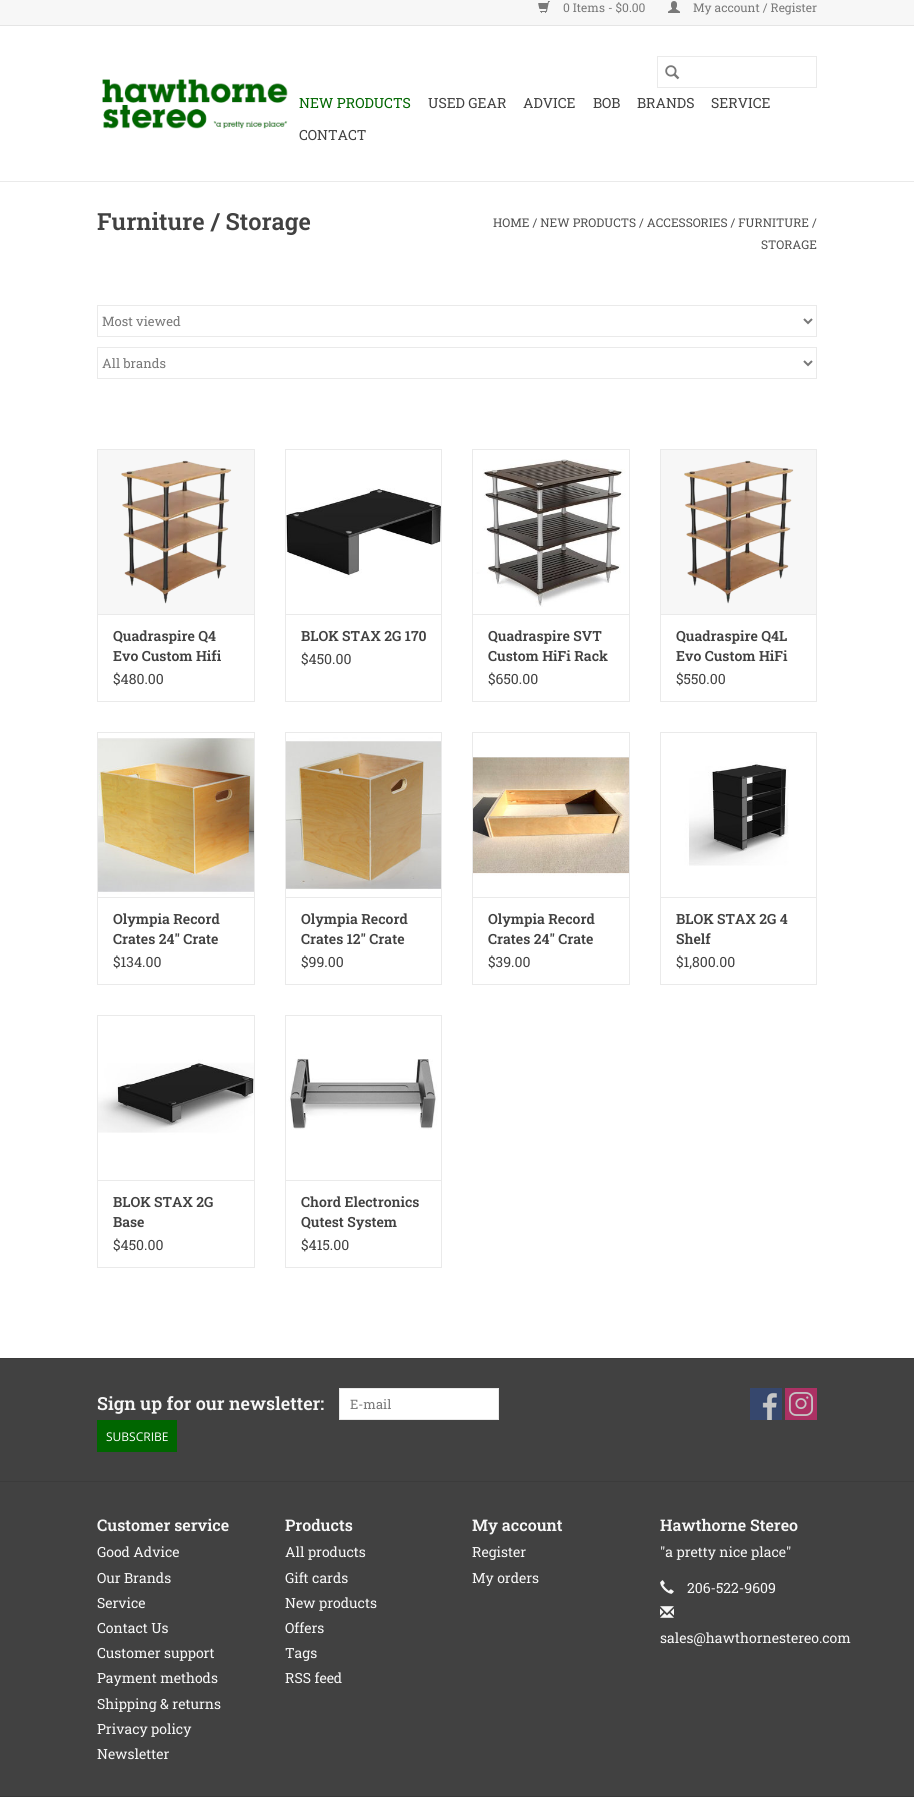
import math
import cairo



def draw_image(context, path, x, y, w, h):
    context.save()
    context.set_source_surface(cairo.ImageSurface.create_from_png(path), x, y)
    context.rectangle(x, y, w, h)
    context.fill()
    context.restore()


def draw(context):
    context.set_source_rgb(1, 1, 1)
    context.paint()
    context.set_source_rgb(234 / 255, 234 / 255, 234 / 255)
    context.rectangle(0, 181, 914, 1)
    context.fill()
    context.set_source_rgb(247 / 255, 247 / 255, 247 / 255)
    context.rectangle(0, 0, 914, 25)
    context.fill()
    context.set_source_rgb(229 / 255, 229 / 255, 229 / 255)
    context.rectangle(0, 25, 914, 1)
    context.fill()
    draw_image(context, "images/1.png", 538, 1, 12, 12)
    draw_image(context, "images/2.png", 668, 1, 12, 12)
    draw_image(context, "images/3.png", 102, 79, 186, 50)
    context.rectangle(657.5, 56.5, 159, 31)
    context.set_source_rgb(234 / 255, 234 / 255, 234 / 255)
    context.set_line_width(1)
    context.stroke()
    draw_image(context, "images/4.png", 665, 65, 15, 15)
    context.rectangle(97.5, 305.5, 719, 31)
    context.stroke()
    context.new_path()
    context.move_to(804, 319)
    context.line_to(808, 323)
    context.line_to(812, 319)
    context.set_source_rgb(119 / 255, 119 / 255, 119 / 255)
    context.set_line_width(2)
    context.stroke()
    context.rectangle(97.5, 347.5, 719, 31)
    context.set_source_rgb(234 / 255, 234 / 255, 234 / 255)
    context.set_line_width(1)
    context.stroke()
    context.new_path()
    context.move_to(804, 361)
    context.line_to(808, 365)
    context.line_to(812, 361)
    context.set_source_rgb(119 / 255, 119 / 255, 119 / 255)
    context.set_line_width(2)
    context.stroke()
    context.set_source_rgb(247 / 255, 247 / 255, 247 / 255)
    context.rectangle(98, 450, 156, 164)
    context.fill()
    context.set_source_rgb(234 / 255, 234 / 255, 234 / 255)
    context.rectangle(97, 449, 158, 1)
    context.fill()
    context.rectangle(254, 449, 1, 165)
    context.fill()
    context.rectangle(97, 449, 1, 165)
    context.fill()
    draw_image(context, "images/5.png", 121, 460, 111, 144)
    context.rectangle(97.5, 614.5, 157, 87)
    context.set_line_width(1)
    context.stroke()
    context.rectangle(285, 449, 157, 1)
    context.fill()
    context.rectangle(441, 449, 1, 165)
    context.fill()
    context.rectangle(285, 449, 1, 165)
    context.fill()
    draw_image(context, "images/6.png", 286, 450, 155, 164)
    context.rectangle(285.5, 614.5, 156, 87)
    context.stroke()
    context.rectangle(472, 449, 158, 1)
    context.fill()
    context.rectangle(629, 449, 1, 165)
    context.fill()
    context.rectangle(472, 449, 1, 165)
    context.fill()
    draw_image(context, "images/7.png", 473, 450, 156, 164)
    context.rectangle(472.5, 614.5, 157, 87)
    context.stroke()
    context.set_source_rgb(247 / 255, 247 / 255, 247 / 255)
    context.rectangle(661, 450, 155, 164)
    context.fill()
    context.set_source_rgb(234 / 255, 234 / 255, 234 / 255)
    context.rectangle(660, 449, 157, 1)
    context.fill()
    context.rectangle(816, 449, 1, 165)
    context.fill()
    context.rectangle(660, 449, 1, 165)
    context.fill()
    draw_image(context, "images/8.png", 684, 460, 110, 144)
    context.rectangle(660.5, 614.5, 156, 87)
    context.stroke()
    context.rectangle(97, 732, 158, 1)
    context.fill()
    context.rectangle(254, 732, 1, 165)
    context.fill()
    context.rectangle(97, 732, 1, 165)
    context.fill()
    draw_image(context, "images/9.png", 98, 733, 156, 164)
    context.rectangle(97.5, 897.5, 157, 87)
    context.stroke()
    context.rectangle(285, 732, 157, 1)
    context.fill()
    context.rectangle(441, 732, 1, 165)
    context.fill()
    context.rectangle(285, 732, 1, 165)
    context.fill()
    draw_image(context, "images/10.png", 286, 733, 155, 164)
    context.rectangle(285.5, 897.5, 156, 87)
    context.stroke()
    context.rectangle(472, 732, 158, 1)
    context.fill()
    context.rectangle(629, 732, 1, 165)
    context.fill()
    context.rectangle(472, 732, 1, 165)
    context.fill()
    draw_image(context, "images/11.png", 473, 733, 156, 164)
    context.rectangle(472.5, 897.5, 157, 87)
    context.stroke()
    context.rectangle(660, 732, 157, 1)
    context.fill()
    context.rectangle(816, 732, 1, 165)
    context.fill()
    context.rectangle(660, 732, 1, 165)
    context.fill()
    draw_image(context, "images/12.png", 661, 733, 155, 164)
    context.rectangle(660.5, 897.5, 156, 87)
    context.stroke()
    context.rectangle(97, 1015, 158, 1)
    context.fill()
    context.rectangle(254, 1015, 1, 165)
    context.fill()
    context.rectangle(97, 1015, 1, 165)
    context.fill()
    draw_image(context, "images/13.png", 98, 1016, 156, 164)
    context.rectangle(97.5, 1180.5, 157, 87)
    context.stroke()
    context.rectangle(285, 1015, 157, 1)
    context.fill()
    context.rectangle(441, 1015, 1, 165)
    context.fill()
    context.rectangle(285, 1015, 1, 165)
    context.fill()
    draw_image(context, "images/14.png", 286, 1016, 155, 164)
    context.rectangle(285.5, 1180.5, 156, 87)
    context.stroke()
    context.set_source_rgb(65 / 255, 65 / 255, 65 / 255)
    context.rectangle(0, 1359, 914, 437)
    context.fill()
    context.set_source_rgb(59 / 255, 59 / 255, 59 / 255)
    context.rectangle(0, 1358, 914, 1)
    context.fill()
    context.set_source_rgb(1, 1, 1)
    context.rectangle(339.5, 1388.5, 159, 31)
    context.fill_preserve()
    context.set_source_rgb(233 / 255, 233 / 255, 233 / 255)
    context.stroke()
    context.set_source_rgb(0, 102 / 255, 0)
    context.rectangle(97, 1420, 80, 32)
    context.fill()
    draw_image(context, "images/15.png", 750, 1388, 32, 32)
    draw_image(context, "images/16.png", 785, 1388, 32, 32)
    context.set_source_rgb(59 / 255, 59 / 255, 59 / 255)
    context.rectangle(0, 1481, 914, 1)
    context.fill()
    draw_image(context, "images/17.png", 660, 1580, 14, 14)
    draw_image(context, "images/18.png", 660, 1606, 14, 12)
    context.set_source_rgb(55 / 255, 55 / 255, 55 / 255)
    context.rectangle(0, 1796, 914, 1)
    context.fill()
    context.select_font_face("Roboto Slab")
    context.set_font_size(12)
    context.set_source_rgb(121 / 255, 121 / 255, 121 / 255)
    context.move_to(563, 12)
    context.show_text("0 Items - $0.00")
    context.move_to(693, 12)
    context.show_text("My account / Register")
    context.set_font_size(14)
    context.set_source_rgb(0, 102 / 255, 0)
    context.move_to(299, 108)
    context.show_text("NEW PRODUCTS")
    context.set_source_rgb(65 / 255, 65 / 255, 65 / 255)
    context.move_to(428, 108)
    context.show_text("USED GEAR")
    context.move_to(523, 108)
    context.show_text("ADVICE")
    context.move_to(593, 108)
    context.show_text("BOB")
    context.move_to(637, 108)
    context.show_text("BRANDS")
    context.move_to(711, 108)
    context.show_text("SERVICE")
    context.move_to(299, 140)
    context.show_text("CONTACT")
    context.select_font_face("Roboto Slab SemiBold")
    context.set_font_size(23.6)
    context.move_to(97, 230)
    context.show_text("Furniture / Storage")
    context.select_font_face("Roboto Slab")
    context.set_font_size(12)
    context.set_source_rgb(80 / 255, 80 / 255, 80 / 255)
    context.move_to(493, 227)
    context.show_text("HOME / NEW PRODUCTS / ACCESSORIES / FURNITURE /")
    context.move_to(761, 249)
    context.show_text("STORAGE")
    context.set_font_size(13)
    context.set_source_rgb(121 / 255, 121 / 255, 121 / 255)
    context.move_to(102, 326)
    context.show_text("Most viewed")
    context.move_to(102, 368)
    context.show_text("All brands")
    context.select_font_face("Roboto Slab SemiBold")
    context.set_font_size(14)
    context.set_source_rgb(65 / 255, 65 / 255, 65 / 255)
    context.move_to(113, 641)
    context.show_text("Quadraspire Q4")
    context.move_to(113, 661)
    context.show_text("Evo Custom Hifi")
    context.select_font_face("Roboto Slab")
    context.move_to(113, 684)
    context.show_text("$480.00")
    context.select_font_face("Roboto Slab SemiBold")
    context.move_to(301, 641)
    context.show_text("BLOK STAX 2G 170")
    context.select_font_face("Roboto Slab")
    context.move_to(301, 664)
    context.show_text("$450.00")
    context.select_font_face("Roboto Slab SemiBold")
    context.move_to(488, 641)
    context.show_text("Quadraspire SVT")
    context.move_to(488, 661)
    context.show_text("Custom HiFi Rack")
    context.select_font_face("Roboto Slab")
    context.move_to(488, 684)
    context.show_text("$650.00")
    context.select_font_face("Roboto Slab SemiBold")
    context.move_to(676, 641)
    context.show_text("Quadraspire Q4L")
    context.move_to(676, 661)
    context.show_text("Evo Custom HiFi")
    context.select_font_face("Roboto Slab")
    context.move_to(676, 684)
    context.show_text("$550.00")
    context.select_font_face("Roboto Slab SemiBold")
    context.move_to(113, 924)
    context.show_text("Olympia Record")
    context.move_to(113, 944)
    context.show_text("Crates 24\" Crate")
    context.select_font_face("Roboto Slab")
    context.move_to(113, 967)
    context.show_text("$134.00")
    context.select_font_face("Roboto Slab SemiBold")
    context.move_to(301, 924)
    context.show_text("Olympia Record")
    context.move_to(301, 944)
    context.show_text("Crates 12\" Crate")
    context.select_font_face("Roboto Slab")
    context.move_to(301, 967)
    context.show_text("$99.00")
    context.select_font_face("Roboto Slab SemiBold")
    context.move_to(488, 924)
    context.show_text("Olympia Record")
    context.move_to(488, 944)
    context.show_text("Crates 24\" Crate")
    context.select_font_face("Roboto Slab")
    context.move_to(488, 967)
    context.show_text("$39.00")
    context.select_font_face("Roboto Slab SemiBold")
    context.move_to(676, 924)
    context.show_text("BLOK STAX 2G 4")
    context.move_to(676, 944)
    context.show_text("Shelf")
    context.select_font_face("Roboto Slab")
    context.move_to(676, 967)
    context.show_text("$1,800.00")
    context.select_font_face("Roboto Slab SemiBold")
    context.move_to(113, 1207)
    context.show_text("BLOK STAX 2G")
    context.move_to(113, 1227)
    context.show_text("Base")
    context.select_font_face("Roboto Slab")
    context.move_to(113, 1250)
    context.show_text("$450.00")
    context.select_font_face("Roboto Slab SemiBold")
    context.move_to(301, 1207)
    context.show_text("Chord Electronics")
    context.move_to(301, 1227)
    context.show_text("Qutest System")
    context.select_font_face("Roboto Slab")
    context.move_to(301, 1250)
    context.show_text("$415.00")
    context.select_font_face("Roboto Slab SemiBold")
    context.set_font_size(18)
    context.set_source_rgb(247 / 255, 247 / 255, 247 / 255)
    context.move_to(97, 1410)
    context.show_text("Sign up for our newsletter:")
    context.select_font_face("Roboto Slab")
    context.set_font_size(13)
    context.set_source_rgb(121 / 255, 121 / 255, 121 / 255)
    context.move_to(350, 1409)
    context.show_text("E-mail")
    context.select_font_face("Open Sans")
    context.set_font_size(12)
    context.set_source_rgb(1, 1, 1)
    context.move_to(106, 1441)
    context.show_text("SUBSCRIBE")
    context.select_font_face("Roboto Slab SemiBold")
    context.set_font_size(16)
    context.set_source_rgb(247 / 255, 247 / 255, 247 / 255)
    context.move_to(97, 1531)
    context.show_text("Customer service")
    context.select_font_face("Roboto Slab")
    context.set_font_size(14)
    context.move_to(97, 1557)
    context.show_text("Good Advice")
    context.move_to(97, 1583)
    context.show_text("Our Brands")
    context.move_to(97, 1608)
    context.show_text("Service")
    context.move_to(97, 1633)
    context.show_text("Contact Us")
    context.move_to(97, 1658)
    context.show_text("Customer support")
    context.move_to(97, 1683)
    context.show_text("Payment methods")
    context.move_to(97, 1709)
    context.show_text("Shipping & returns")
    context.move_to(97, 1734)
    context.show_text("Privacy policy")
    context.move_to(97, 1759)
    context.show_text("Newsletter")
    context.select_font_face("Roboto Slab SemiBold")
    context.set_font_size(16)
    context.move_to(285, 1531)
    context.show_text("Products")
    context.select_font_face("Roboto Slab")
    context.set_font_size(14)
    context.move_to(285, 1557)
    context.show_text("All products")
    context.move_to(285, 1583)
    context.show_text("Gift cards")
    context.move_to(285, 1608)
    context.show_text("New products")
    context.move_to(285, 1633)
    context.show_text("Offers")
    context.move_to(285, 1658)
    context.show_text("Tags")
    context.move_to(285, 1683)
    context.show_text("RSS feed")
    context.select_font_face("Roboto Slab SemiBold")
    context.set_font_size(16)
    context.move_to(472, 1531)
    context.show_text("My account")
    context.select_font_face("Roboto Slab")
    context.set_font_size(14)
    context.move_to(472, 1557)
    context.show_text("Register")
    context.move_to(472, 1583)
    context.show_text("My orders")
    context.select_font_face("Roboto Slab SemiBold")
    context.set_font_size(16)
    context.move_to(660, 1531)
    context.show_text("Hawthorne Stereo")
    context.select_font_face("Roboto Slab")
    context.set_font_size(14)
    context.move_to(660, 1557)
    context.show_text("\"a pretty nice place\"")
    context.move_to(687, 1593)
    context.show_text("206-522-9609")
    context.move_to(660, 1643)
    context.show_text("sales@hawthornestereo.com")


surface = cairo.ImageSurface(cairo.Format.RGB24, 914, 1797)
context = cairo.Context(surface)
options = cairo.FontOptions()
options.set_hint_metrics(cairo.HintMetrics.OFF)
options.set_hint_style(cairo.HintStyle.NONE)
context.set_font_options(options)
context.set_miter_limit(4)
draw(context)
surface.write_to_png("out.png")
